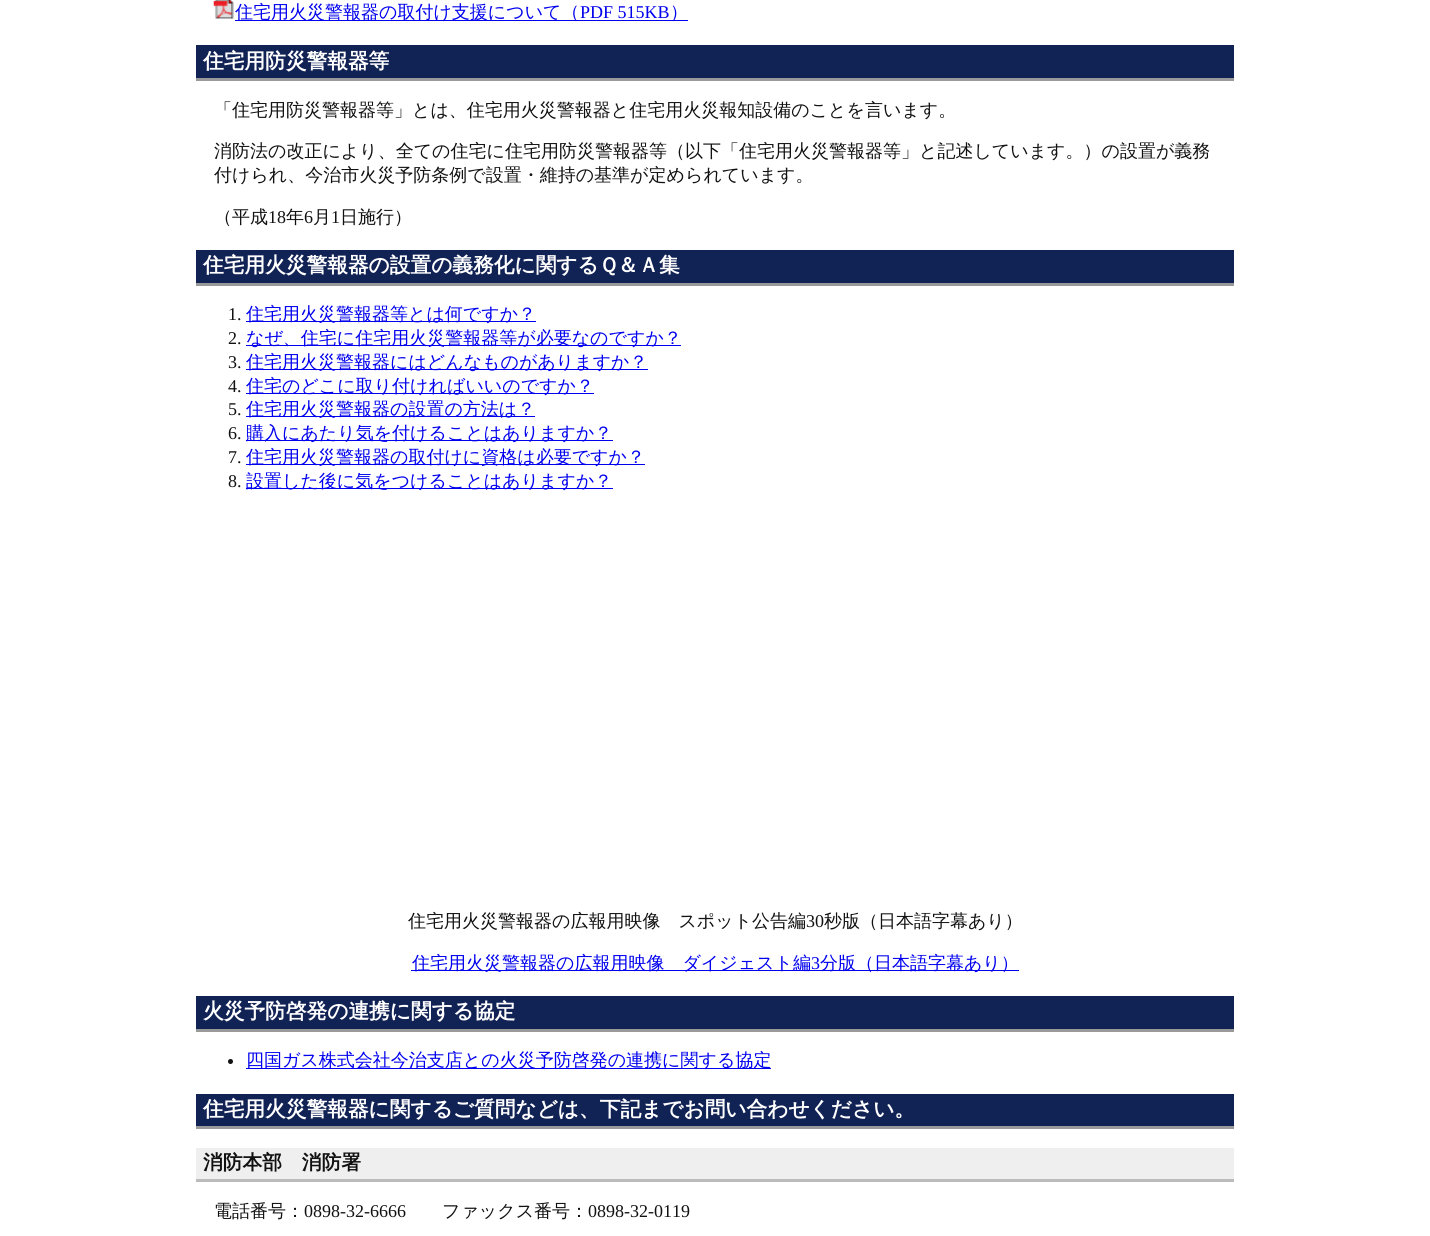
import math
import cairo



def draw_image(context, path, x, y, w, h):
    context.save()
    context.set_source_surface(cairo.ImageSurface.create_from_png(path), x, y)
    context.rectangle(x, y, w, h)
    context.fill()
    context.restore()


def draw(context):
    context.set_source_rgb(1, 1, 1)
    context.paint()
    draw_image(context, "images/1.png", 213, 0, 21, 19)
    context.set_source_rgb(0, 0, 238 / 255)
    context.rectangle(235, 20, 453, 1)
    context.fill()
    context.set_source_rgb(17 / 255, 34 / 255, 85 / 255)
    context.rectangle(196, 45, 1038, 33)
    context.fill()
    context.set_source_rgb(153 / 255, 153 / 255, 153 / 255)
    context.rectangle(196, 78, 1038, 3)
    context.fill()
    context.set_source_rgb(17 / 255, 34 / 255, 85 / 255)
    context.rectangle(196, 250, 1038, 33)
    context.fill()
    context.set_source_rgb(153 / 255, 153 / 255, 153 / 255)
    context.rectangle(196, 283, 1038, 3)
    context.fill()
    context.set_source_rgb(0, 0, 238 / 255)
    context.rectangle(246, 321, 290, 1)
    context.fill()
    context.rectangle(246, 345, 435, 1)
    context.fill()
    context.rectangle(246, 369, 402, 1)
    context.fill()
    context.rectangle(246, 393, 348, 1)
    context.fill()
    context.rectangle(246, 416, 289, 1)
    context.fill()
    context.rectangle(246, 440, 367, 1)
    context.fill()
    context.rectangle(246, 464, 399, 1)
    context.fill()
    context.rectangle(246, 488, 367, 1)
    context.fill()
    context.rectangle(411, 970, 608, 1)
    context.fill()
    context.set_source_rgb(17 / 255, 34 / 255, 85 / 255)
    context.rectangle(196, 996, 1038, 33)
    context.fill()
    context.set_source_rgb(153 / 255, 153 / 255, 153 / 255)
    context.rectangle(196, 1029, 1038, 3)
    context.fill()
    context.set_source_rgb(17 / 255, 17 / 255, 17 / 255)
    context.arc(230.5, 1061.5, 2.5, 0, 2 * math.pi)
    context.fill()
    context.set_source_rgb(0, 0, 238 / 255)
    context.rectangle(246, 1068, 525, 1)
    context.fill()
    context.set_source_rgb(17 / 255, 34 / 255, 85 / 255)
    context.rectangle(196, 1094, 1038, 32)
    context.fill()
    context.set_source_rgb(153 / 255, 153 / 255, 153 / 255)
    context.rectangle(196, 1126, 1038, 3)
    context.fill()
    context.set_source_rgb(239 / 255, 239 / 255, 239 / 255)
    context.rectangle(196, 1148, 1038, 31)
    context.fill()
    context.set_source_rgb(187 / 255, 187 / 255, 187 / 255)
    context.rectangle(196, 1179, 1038, 3)
    context.fill()
    context.select_font_face("WenQuanYi Zen Hei Medium")
    context.set_font_size(18)
    context.set_source_rgb(0, 0, 238 / 255)
    context.move_to(235, 18)
    context.show_text("住宅用火災警報器の取付け支援について（")
    context.select_font_face("Liberation Serif")
    context.move_to(580, 18)
    context.show_text("PDF 515KB")
    context.select_font_face("WenQuanYi Zen Hei Medium")
    context.move_to(670, 18)
    context.show_text("）")
    context.select_font_face("WenQuanYi Zen Hei", cairo.FontSlant.NORMAL, cairo.FontWeight.BOLD)
    context.set_font_size(20.7)
    context.set_source_rgb(1, 1, 1)
    context.move_to(203, 68)
    context.show_text("住宅用防災警報器等")
    context.select_font_face("WenQuanYi Zen Hei Medium")
    context.set_font_size(18)
    context.set_source_rgb(17 / 255, 17 / 255, 17 / 255)
    context.move_to(214, 116)
    context.show_text("「住宅用防災警報器等」とは、住宅用火災警報器と住宅用火災報知設備のことを言います。")
    context.move_to(214, 157)
    context.show_text("消防法の改正により、全ての住宅に住宅用防災警報器等（以下「住宅用火災警報器等」と記述しています。）の設置が義務")
    context.move_to(214, 181)
    context.show_text("付けられ、今治市火災予防条例で設置・維持の基準が定められています。")
    context.move_to(214, 223)
    context.show_text("（平成")
    context.select_font_face("Liberation Serif")
    context.move_to(268, 223)
    context.show_text("18")
    context.select_font_face("WenQuanYi Zen Hei Medium")
    context.move_to(286, 223)
    context.show_text("年")
    context.select_font_face("Liberation Serif")
    context.move_to(304, 223)
    context.show_text("6")
    context.select_font_face("WenQuanYi Zen Hei Medium")
    context.move_to(313, 223)
    context.show_text("月")
    context.select_font_face("Liberation Serif")
    context.move_to(331, 223)
    context.show_text("1")
    context.select_font_face("WenQuanYi Zen Hei Medium")
    context.move_to(340, 223)
    context.show_text("日施行）")
    context.select_font_face("WenQuanYi Zen Hei", cairo.FontSlant.NORMAL, cairo.FontWeight.BOLD)
    context.set_font_size(20.7)
    context.set_source_rgb(1, 1, 1)
    context.move_to(203, 272)
    context.show_text("住宅用火災警報器の設置の義務化に関するＱ＆Ａ集")
    context.select_font_face("Liberation Serif")
    context.set_font_size(18)
    context.set_source_rgb(17 / 255, 17 / 255, 17 / 255)
    context.move_to(228, 320)
    context.show_text("1.")
    context.select_font_face("WenQuanYi Zen Hei Medium")
    context.set_source_rgb(0, 0, 238 / 255)
    context.move_to(246, 320)
    context.show_text("住宅用火災警報器等とは何ですか？")
    context.select_font_face("Liberation Serif")
    context.set_source_rgb(17 / 255, 17 / 255, 17 / 255)
    context.move_to(228, 344)
    context.show_text("2.")
    context.select_font_face("WenQuanYi Zen Hei Medium")
    context.set_source_rgb(0, 0, 238 / 255)
    context.move_to(246, 344)
    context.show_text("なぜ、住宅に住宅用火災警報器等が必要なのですか？")
    context.select_font_face("Liberation Serif")
    context.set_source_rgb(17 / 255, 17 / 255, 17 / 255)
    context.move_to(228, 368)
    context.show_text("3.")
    context.select_font_face("WenQuanYi Zen Hei Medium")
    context.set_source_rgb(0, 0, 238 / 255)
    context.move_to(246, 368)
    context.show_text("住宅用火災警報器にはどんなものがありますか？")
    context.select_font_face("Liberation Serif")
    context.set_source_rgb(17 / 255, 17 / 255, 17 / 255)
    context.move_to(228, 392)
    context.show_text("4.")
    context.select_font_face("WenQuanYi Zen Hei Medium")
    context.set_source_rgb(0, 0, 238 / 255)
    context.move_to(246, 392)
    context.show_text("住宅のどこに取り付ければいいのですか？")
    context.select_font_face("Liberation Serif")
    context.set_source_rgb(17 / 255, 17 / 255, 17 / 255)
    context.move_to(228, 415)
    context.show_text("5.")
    context.select_font_face("WenQuanYi Zen Hei Medium")
    context.set_source_rgb(0, 0, 238 / 255)
    context.move_to(246, 415)
    context.show_text("住宅用火災警報器の設置の方法は？")
    context.select_font_face("Liberation Serif")
    context.set_source_rgb(17 / 255, 17 / 255, 17 / 255)
    context.move_to(228, 439)
    context.show_text("6.")
    context.select_font_face("WenQuanYi Zen Hei Medium")
    context.set_source_rgb(0, 0, 238 / 255)
    context.move_to(246, 439)
    context.show_text("購入にあたり気を付けることはありますか？")
    context.select_font_face("Liberation Serif")
    context.set_source_rgb(17 / 255, 17 / 255, 17 / 255)
    context.move_to(228, 463)
    context.show_text("7.")
    context.select_font_face("WenQuanYi Zen Hei Medium")
    context.set_source_rgb(0, 0, 238 / 255)
    context.move_to(246, 463)
    context.show_text("住宅用火災警報器の取付けに資格は必要ですか？")
    context.select_font_face("Liberation Serif")
    context.set_source_rgb(17 / 255, 17 / 255, 17 / 255)
    context.move_to(228, 487)
    context.show_text("8.")
    context.select_font_face("WenQuanYi Zen Hei Medium")
    context.set_source_rgb(0, 0, 238 / 255)
    context.move_to(246, 487)
    context.show_text("設置した後に気をつけることはありますか？")
    context.set_source_rgb(17 / 255, 17 / 255, 17 / 255)
    context.move_to(408, 927)
    context.show_text("住宅用火災警報器の広報用映像　スポット公告編")
    context.select_font_face("Liberation Serif")
    context.move_to(806, 927)
    context.show_text("30")
    context.select_font_face("WenQuanYi Zen Hei Medium")
    context.move_to(824, 927)
    context.show_text("秒版（日本語字幕あり）")
    context.set_source_rgb(0, 0, 238 / 255)
    context.move_to(412, 969)
    context.show_text("住宅用火災警報器の広報用映像　ダイジェスト編")
    context.select_font_face("Liberation Serif")
    context.move_to(811, 969)
    context.show_text("3")
    context.select_font_face("WenQuanYi Zen Hei Medium")
    context.move_to(820, 969)
    context.show_text("分版（日本語字幕あり）")
    context.select_font_face("WenQuanYi Zen Hei", cairo.FontSlant.NORMAL, cairo.FontWeight.BOLD)
    context.set_font_size(20.7)
    context.set_source_rgb(1, 1, 1)
    context.move_to(203, 1018)
    context.show_text("火災予防啓発の連携に関する協定")
    context.select_font_face("WenQuanYi Zen Hei Medium")
    context.set_font_size(18)
    context.set_source_rgb(0, 0, 238 / 255)
    context.move_to(246, 1066)
    context.show_text("四国ガス株式会社今治支店との火災予防啓発の連携に関する協定")
    context.select_font_face("WenQuanYi Zen Hei", cairo.FontSlant.NORMAL, cairo.FontWeight.BOLD)
    context.set_font_size(20.7)
    context.set_source_rgb(1, 1, 1)
    context.move_to(203, 1116)
    context.show_text("住宅用火災警報器に関するご質問などは、下記までお問い合わせください。")
    context.set_font_size(19.75)
    context.set_source_rgb(17 / 255, 17 / 255, 17 / 255)
    context.move_to(203, 1169)
    context.show_text("消防本部　消防署")
    context.select_font_face("WenQuanYi Zen Hei Medium")
    context.set_font_size(18)
    context.move_to(214, 1217)
    context.show_text("電話番号：")
    context.select_font_face("Liberation Serif")
    context.move_to(304, 1217)
    context.show_text("0898-32-6666")
    context.select_font_face("WenQuanYi Zen Hei Medium")
    context.move_to(442, 1217)
    context.show_text("ファックス番号：")
    context.select_font_face("Liberation Serif")
    context.move_to(588, 1217)
    context.show_text("0898-32-0119")


surface = cairo.ImageSurface(cairo.Format.RGB24, 1430, 1236)
context = cairo.Context(surface)
options = cairo.FontOptions()
options.set_hint_metrics(cairo.HintMetrics.OFF)
options.set_hint_style(cairo.HintStyle.NONE)
context.set_font_options(options)
context.set_miter_limit(4)
draw(context)
surface.write_to_png("out.png")
